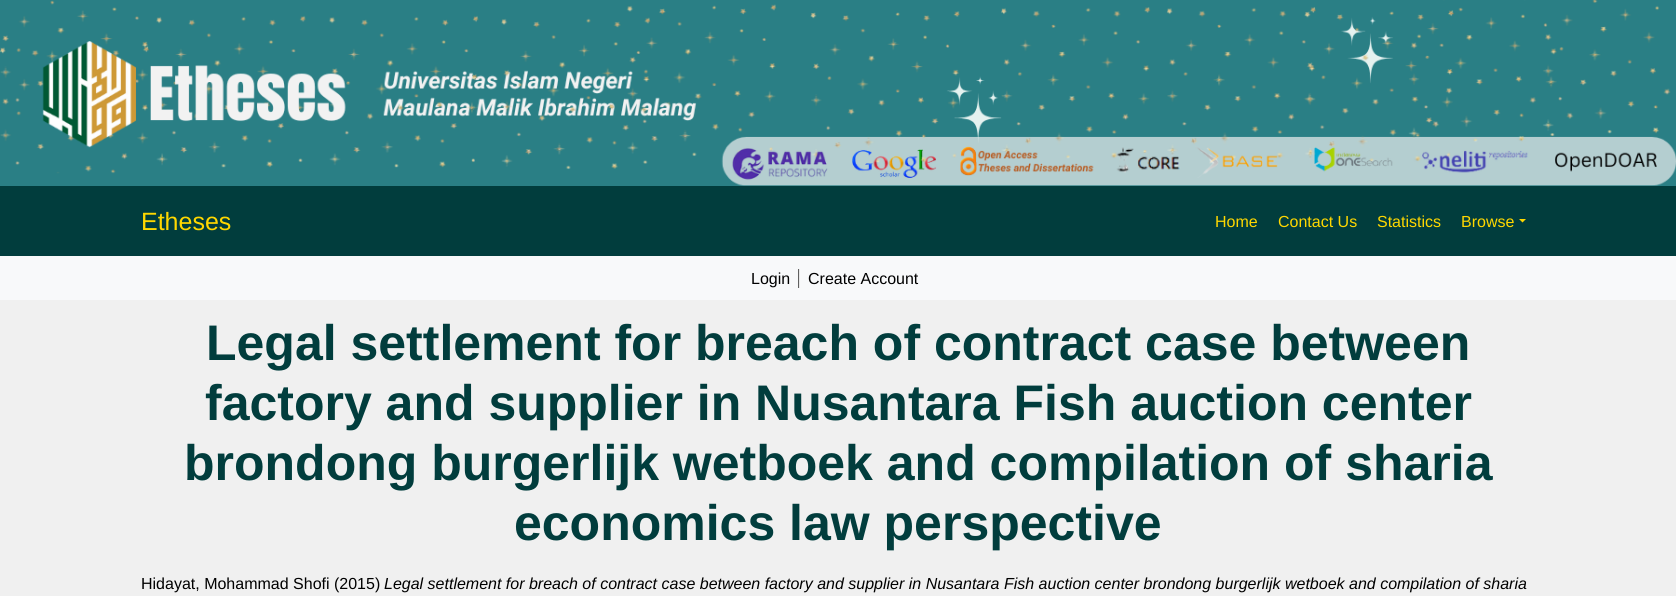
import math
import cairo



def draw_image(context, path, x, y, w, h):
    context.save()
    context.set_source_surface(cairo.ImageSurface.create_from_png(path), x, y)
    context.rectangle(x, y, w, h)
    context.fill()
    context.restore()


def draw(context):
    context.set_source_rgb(240 / 255, 240 / 255, 240 / 255)
    context.paint()
    draw_image(context, "images/1.png", 0, 0, 1676, 186)
    context.set_source_rgb(1 / 255, 61 / 255, 61 / 255)
    context.rectangle(0, 186, 1676, 70)
    context.fill()
    context.set_source_rgb(1, 215 / 255, 0)
    context.new_path()
    context.move_to(1519, 219)
    context.line_to(1526, 219)
    context.line_to(1522.5, 222.5)
    context.close_path()
    context.fill()
    context.set_source_rgb(248 / 255, 249 / 255, 250 / 255)
    context.rectangle(0, 256, 1676, 44)
    context.fill()
    context.set_source_rgb(96 / 255, 96 / 255, 96 / 255)
    context.rectangle(798, 269, 1, 19)
    context.fill()
    context.set_source_rgb(232 / 255, 232 / 255, 232 / 255)
    context.rectangle(799, 269, 1, 19)
    context.fill()
    context.select_font_face("Liberation Sans")
    context.set_font_size(25)
    context.set_source_rgb(1, 215 / 255, 0)
    context.move_to(141, 230)
    context.show_text("Etheses")
    context.set_font_size(16)
    context.move_to(1215, 227)
    context.show_text("Home")
    context.move_to(1278, 227)
    context.show_text("Contact Us")
    context.move_to(1377, 227)
    context.show_text("Statistics")
    context.move_to(1461, 227)
    context.show_text("Browse")
    context.set_source_rgb(0, 0, 0)
    context.move_to(751, 284)
    context.show_text("Login")
    context.move_to(808, 284)
    context.show_text("Create Account")
    context.select_font_face("Liberation Sans", cairo.FontSlant.NORMAL, cairo.FontWeight.BOLD)
    context.set_font_size(50)
    context.set_source_rgb(1 / 255, 61 / 255, 61 / 255)
    context.move_to(206, 360)
    context.show_text("Legal settlement for breach of contract case between")
    context.move_to(205, 420)
    context.show_text("factory and supplier in Nusantara Fish auction center")
    context.move_to(184, 480)
    context.show_text("brondong burgerlijk wetboek and compilation of sharia")
    context.move_to(514, 540)
    context.show_text("economics law perspective")
    context.select_font_face("Liberation Sans")
    context.set_font_size(16)
    context.set_source_rgb(0, 0, 0)
    context.move_to(141, 589)
    context.show_text("Hidayat, Mohammad Shofi (2015)")
    context.select_font_face("Liberation Sans", cairo.FontSlant.ITALIC)
    context.move_to(384, 589)
    context.show_text("Legal settlement for breach of contract case between factory and supplier in Nusantara Fish auction center brondong burgerlijk wetboek and compilation of sharia")


surface = cairo.ImageSurface(cairo.Format.RGB24, 1676, 596)
context = cairo.Context(surface)
options = cairo.FontOptions()
options.set_hint_metrics(cairo.HintMetrics.OFF)
options.set_hint_style(cairo.HintStyle.NONE)
context.set_font_options(options)
context.set_miter_limit(4)
draw(context)
surface.write_to_png("out.png")
